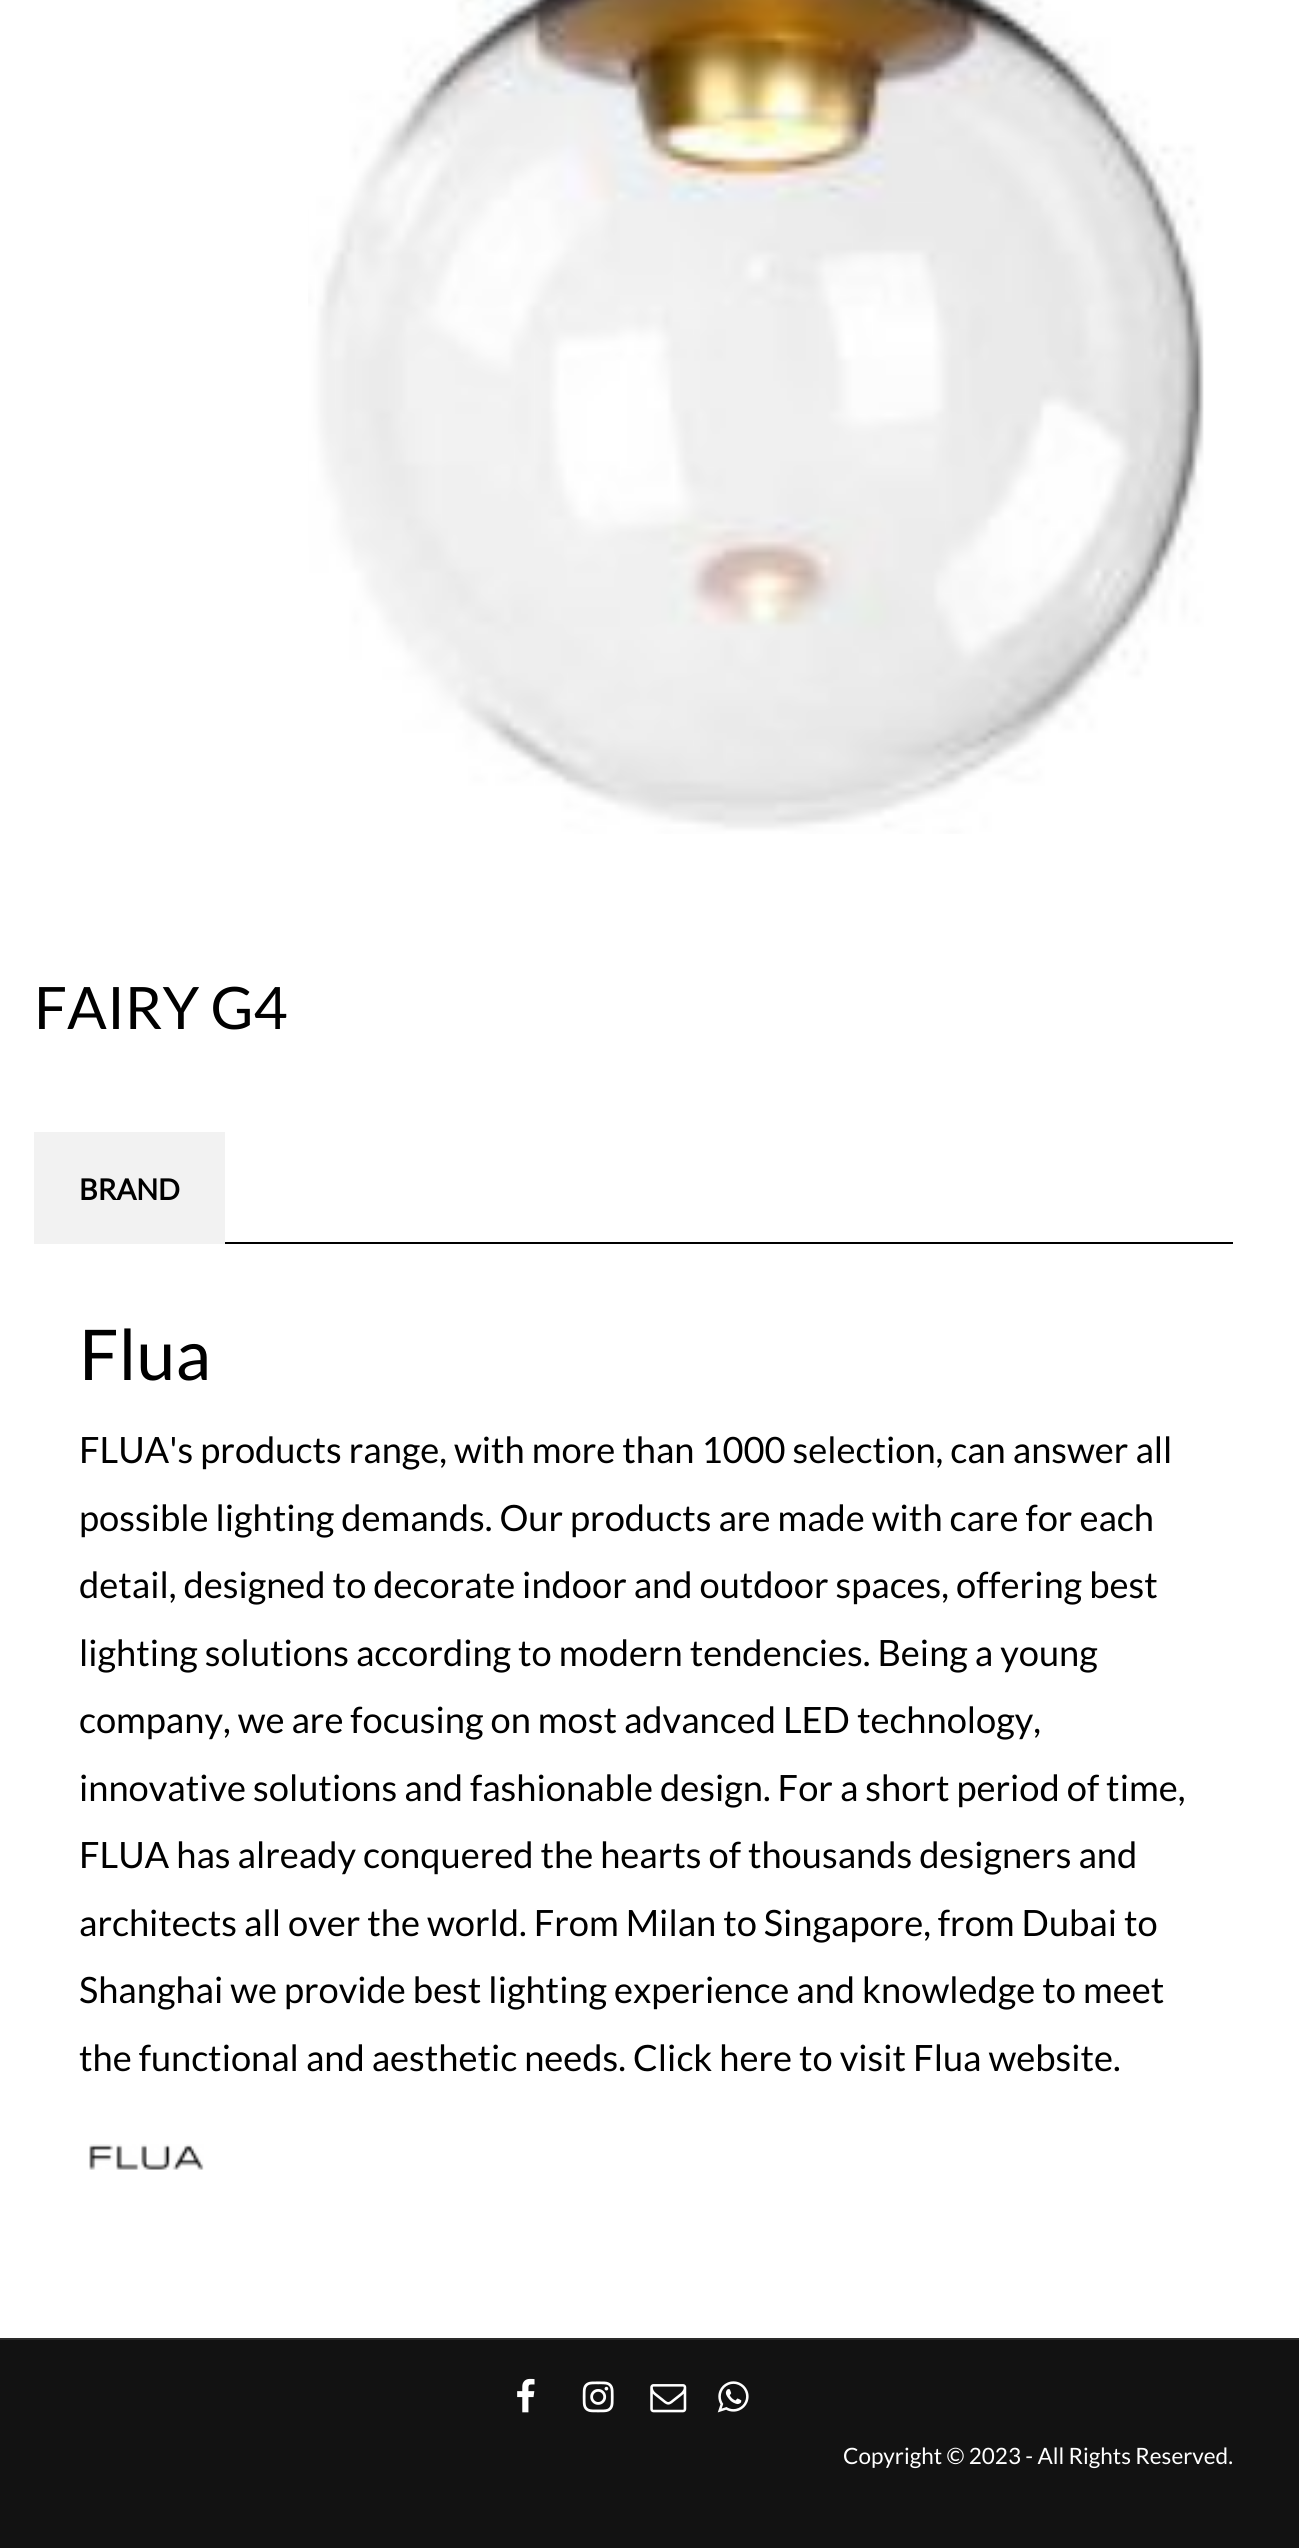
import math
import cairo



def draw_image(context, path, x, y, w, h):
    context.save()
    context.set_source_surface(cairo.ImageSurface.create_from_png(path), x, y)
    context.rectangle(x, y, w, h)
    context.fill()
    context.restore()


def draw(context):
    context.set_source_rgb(1, 1, 1)
    context.paint()
    draw_image(context, "images/1.png", 308, 0, 896, 834)
    context.set_source_rgb(0, 0, 0)
    context.rectangle(225, 1242, 1008, 2)
    context.fill()
    context.set_source_rgb(242 / 255, 242 / 255, 242 / 255)
    context.rectangle(34, 1132, 191, 112)
    context.fill()
    draw_image(context, "images/2.png", 89, 2144, 115, 26)
    context.set_source_rgb(18 / 255, 18 / 255, 18 / 255)
    context.rectangle(0, 2340, 1299, 208)
    context.fill()
    context.set_source_rgb(42 / 255, 42 / 255, 42 / 255)
    context.rectangle(0, 2338, 1299, 2)
    context.fill()
    draw_image(context, "images/3.png", 517, 2378, 18, 35)
    draw_image(context, "images/4.png", 582, 2381, 32, 32)
    draw_image(context, "images/5.png", 650, 2384, 37, 29)
    draw_image(context, "images/6.png", 717, 2381, 32, 32)
    context.select_font_face("Lato")
    context.set_font_size(58.5)
    context.set_source_rgb(0, 0, 0)
    context.move_to(34, 1029)
    context.show_text("FAIRY G4")
    context.select_font_face("Lato", cairo.FontSlant.NORMAL, cairo.FontWeight.BOLD)
    context.set_font_size(29)
    context.move_to(79, 1200)
    context.show_text("BRAND")
    context.select_font_face("Lato")
    context.set_font_size(70)
    context.move_to(79, 1380)
    context.show_text("Flua")
    context.set_font_size(36.25)
    context.move_to(79, 1463)
    context.show_text("FLUA's products range, with more than 1000 selection, can answer all")
    context.move_to(79, 1531)
    context.show_text("possible lighting demands. Our products are made with care for each")
    context.move_to(79, 1598)
    context.show_text("detail, designed to decorate indoor and outdoor spaces, offering best")
    context.move_to(79, 1666)
    context.show_text("lighting solutions according to modern tendencies. Being a young")
    context.move_to(79, 1733)
    context.show_text("company, we are focusing on most advanced LED technology,")
    context.move_to(79, 1801)
    context.show_text("innovative solutions and fashionable design. For a short period of time,")
    context.move_to(79, 1868)
    context.show_text("FLUA has already conquered the hearts of thousands designers and")
    context.move_to(79, 1936)
    context.show_text("architects all over the world. From Milan to Singapore, from Dubai to")
    context.move_to(79, 2003)
    context.show_text("Shanghai we provide best lighting experience and knowledge to meet")
    context.move_to(79, 2071)
    context.show_text("the functional and aesthetic needs. Click here to visit Flua website.")
    context.set_font_size(22.5)
    context.set_source_rgb(1, 1, 1)
    context.move_to(843, 2464)
    context.show_text("Copyright © 2023 - All Rights Reserved.")


surface = cairo.ImageSurface(cairo.Format.RGB24, 1299, 2548)
context = cairo.Context(surface)
options = cairo.FontOptions()
options.set_hint_metrics(cairo.HintMetrics.OFF)
options.set_hint_style(cairo.HintStyle.NONE)
context.set_font_options(options)
context.set_miter_limit(4)
draw(context)
surface.write_to_png("out.png")
